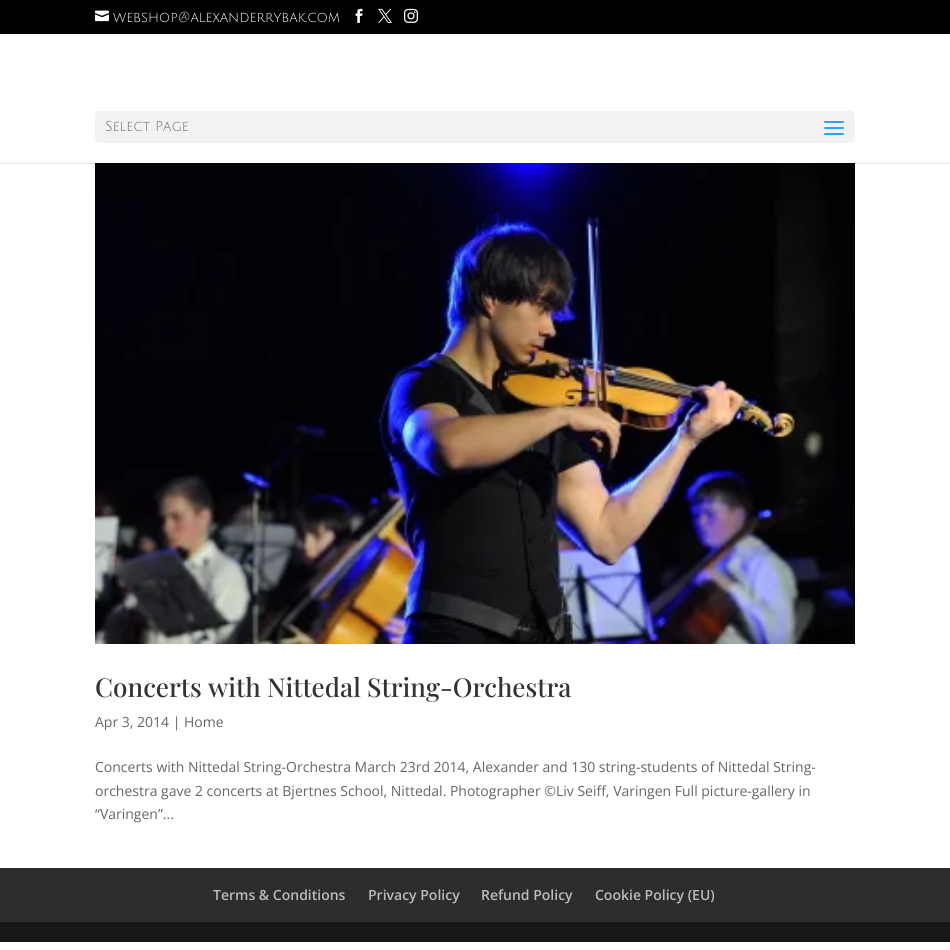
import math
import cairo



def rounded_rect(context, x, y, w, h, r):
    context.new_sub_path()
    for i, (u, v) in enumerate([(x + w - r, y + h - r), (x + r, y + h - r), (x + r, y + r), (x + w - r, y + r)]):
        context.arc(u, v, r, i * math.pi / 2, (i + 1) * math.pi / 2)
    context.close_path()


def draw_image(context, path, x, y, w, h):
    context.save()
    context.set_source_surface(cairo.ImageSurface.create_from_png(path), x, y)
    context.rectangle(x, y, w, h)
    context.fill()
    context.restore()


def draw(context):
    context.set_source_rgb(1, 1, 1)
    context.paint()
    context.set_source_rgb(0, 0, 0)
    context.rectangle(0, 0, 950, 34)
    context.fill()
    draw_image(context, "images/1.png", 95, 10, 14, 12)
    draw_image(context, "images/2.png", 355, 8, 8, 15)
    draw_image(context, "images/3.png", 378, 8, 14, 15)
    draw_image(context, "images/4.png", 404, 8, 14, 15)
    draw_image(context, "images/6.png", 95, 163, 760, 481)
    context.set_source_rgba(0, 0, 0, 0.1)
    context.rectangle(0, 163, 950, 1)
    context.fill()
    context.set_source_rgb(242 / 255, 242 / 255, 242 / 255)
    rounded_rect(context, 95, 111, 760, 32, 5)
    context.fill()
    draw_image(context, "images/5.png", 824, 121, 20, 14)
    context.set_source_rgb(45 / 255, 45 / 255, 45 / 255)
    context.rectangle(0, 868, 950, 54)
    context.fill()
    context.set_source_rgb(23 / 255, 23 / 255, 23 / 255)
    context.rectangle(0, 922, 950, 20)
    context.fill()
    context.select_font_face("Julius Sans One")
    context.set_font_size(14)
    context.set_source_rgb(1, 1, 1)
    context.move_to(113, 22)
    context.show_text("webshop@alexanderrybak.com")
    context.set_source_rgb(102 / 255, 102 / 255, 102 / 255)
    context.move_to(105, 131)
    context.show_text("Select Page")
    context.select_font_face("Playfair Display Medium")
    context.set_font_size(26)
    context.set_source_rgb(51 / 255, 51 / 255, 51 / 255)
    context.move_to(95, 697)
    context.show_text("Concerts with Nittedal String-Orchestra")
    context.select_font_face("Open Sans")
    context.set_font_size(14)
    context.set_source_rgb(102 / 255, 102 / 255, 102 / 255)
    context.move_to(95, 727)
    context.show_text("Apr 3, 2014 | Home")
    context.move_to(95, 772)
    context.show_text("Concerts with Nittedal String-Orchestra March 23rd 2014, Alexander and 130 string-students of Nittedal String-")
    context.move_to(95, 796)
    context.show_text("orchestra gave 2 concerts at Bjertnes School, Nittedal. Photographer ©Liv Seiff, Varingen Full picture-gallery in")
    context.move_to(95, 819)
    context.show_text("“Varingen”...")
    context.select_font_face("Open Sans SemiBold")
    context.set_source_rgb(187 / 255, 187 / 255, 187 / 255)
    context.move_to(213, 900)
    context.show_text("Terms & Conditions")
    context.move_to(368, 900)
    context.show_text("Privacy Policy")
    context.move_to(481, 900)
    context.show_text("Refund Policy")
    context.move_to(595, 900)
    context.show_text("Cookie Policy (EU)")


surface = cairo.ImageSurface(cairo.Format.RGB24, 950, 950)
context = cairo.Context(surface)
options = cairo.FontOptions()
options.set_hint_metrics(cairo.HintMetrics.OFF)
options.set_hint_style(cairo.HintStyle.NONE)
context.set_font_options(options)
context.set_miter_limit(4)
draw(context)
surface.write_to_png("out.png")
